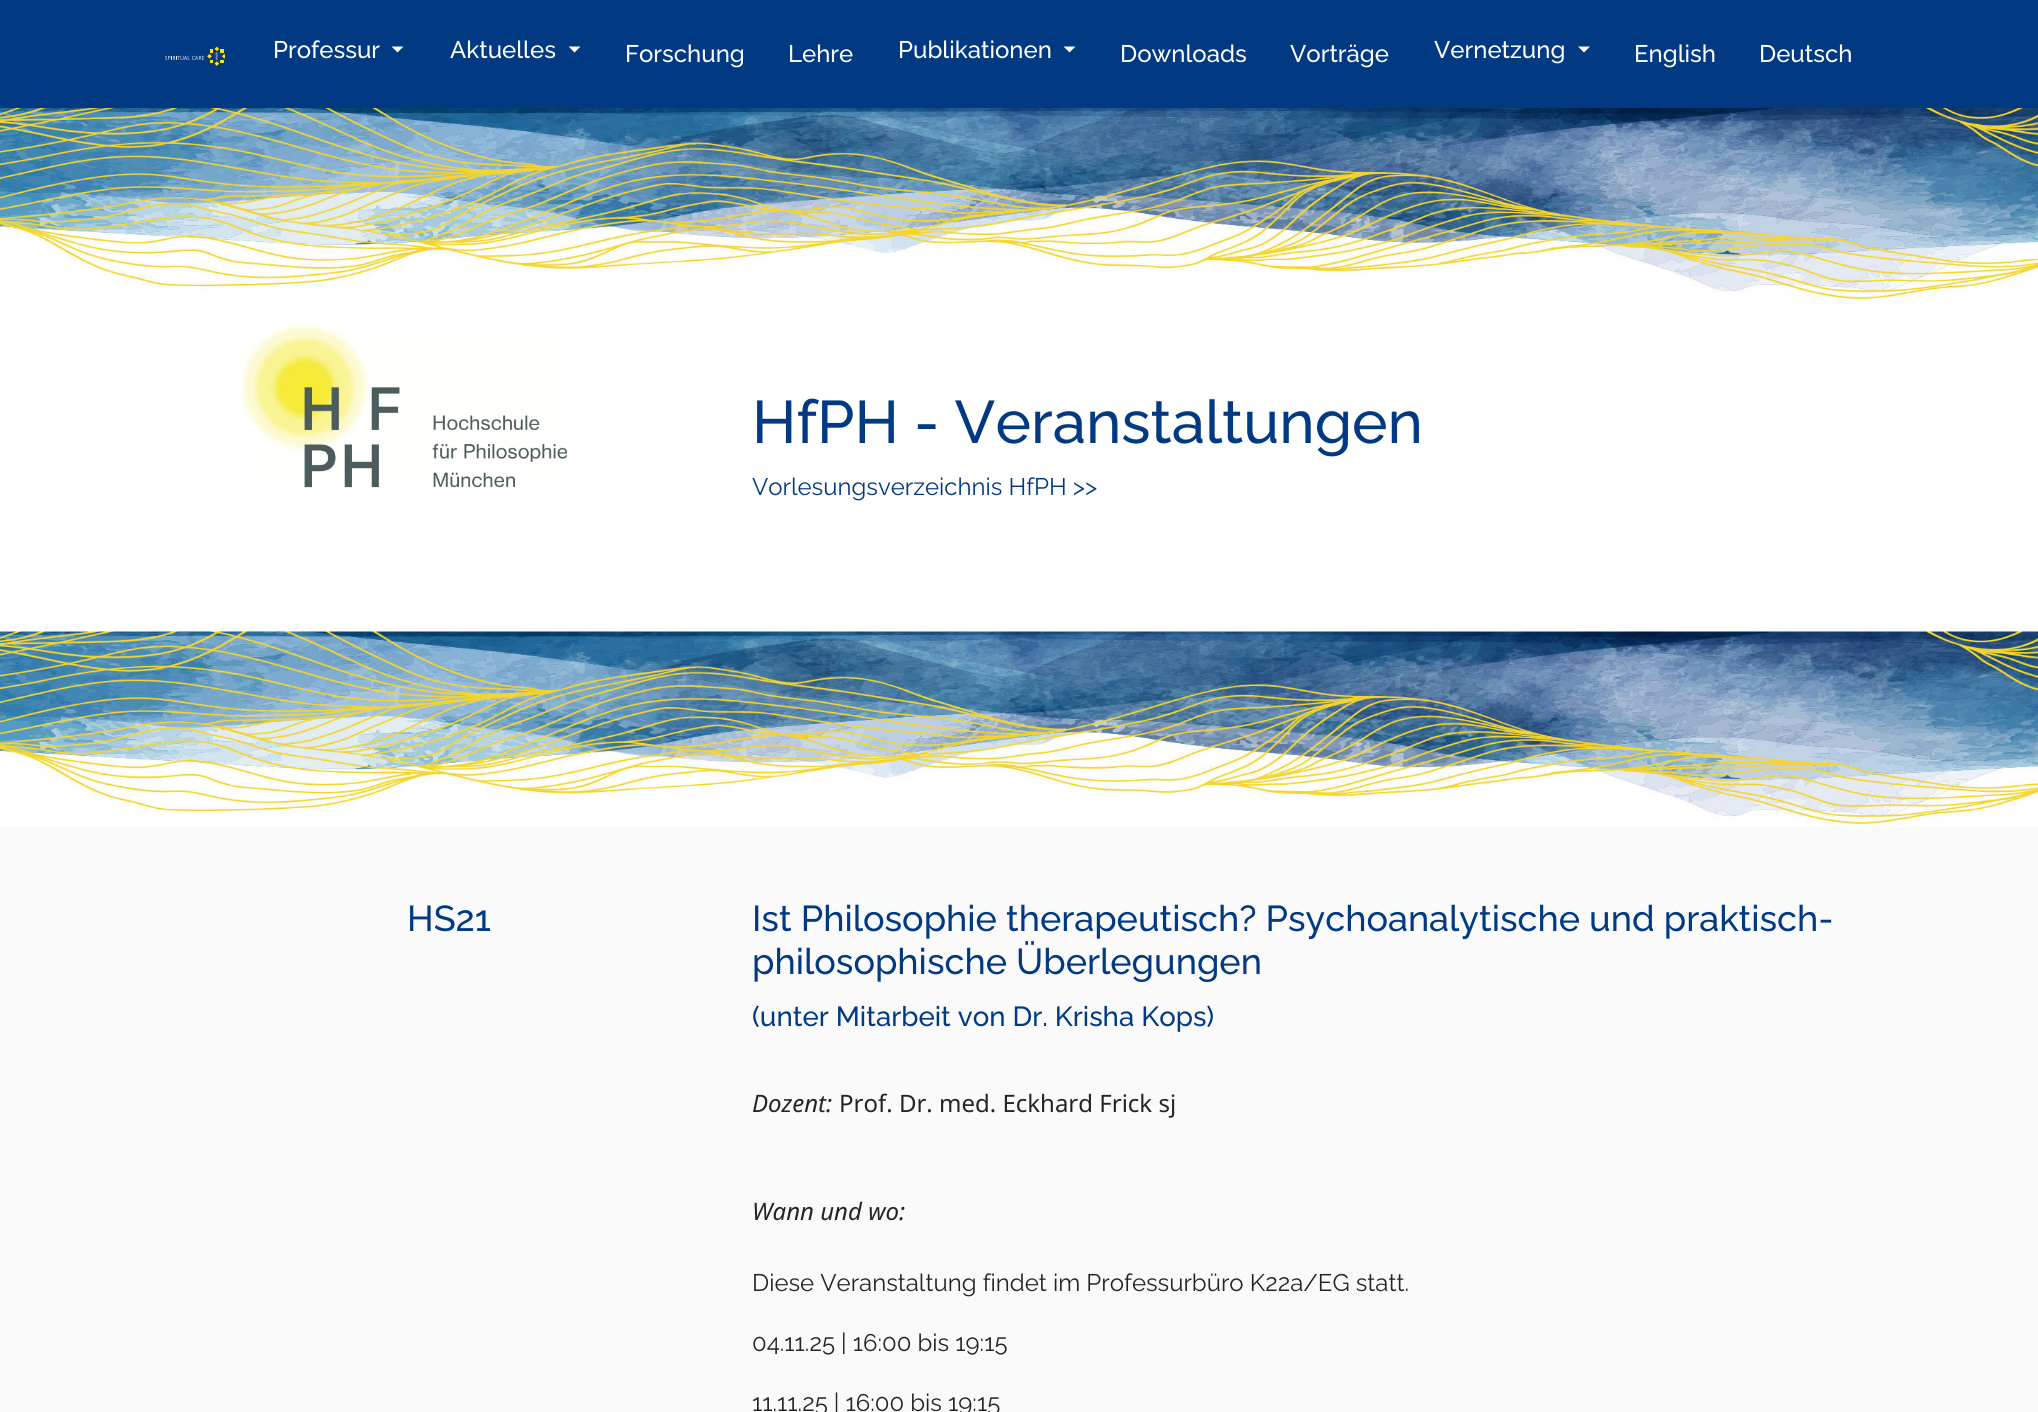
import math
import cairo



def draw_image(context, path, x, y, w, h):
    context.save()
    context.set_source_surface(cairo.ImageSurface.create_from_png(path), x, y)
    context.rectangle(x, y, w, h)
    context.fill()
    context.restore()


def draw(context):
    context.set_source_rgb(1, 1, 1)
    context.paint()
    context.set_source_rgb(1 / 255, 58 / 255, 131 / 255)
    context.rectangle(0, 0, 2038, 108)
    context.fill()
    draw_image(context, "images/1.png", 165, 47, 60, 19)
    context.set_source_rgb(1, 1, 1)
    context.new_path()
    context.move_to(391.5, 46.5)
    context.line_to(403.5, 46.5)
    context.line_to(397.5, 52.5)
    context.close_path()
    context.fill()
    context.new_path()
    context.move_to(568.5, 46.5)
    context.line_to(580.5, 46.5)
    context.line_to(574.5, 52.5)
    context.close_path()
    context.fill()
    context.new_path()
    context.move_to(1063.5, 46.5)
    context.line_to(1075.5, 46.5)
    context.line_to(1069.5, 52.5)
    context.close_path()
    context.fill()
    context.new_path()
    context.move_to(1578, 46.5)
    context.line_to(1590, 46.5)
    context.line_to(1584, 52.5)
    context.close_path()
    context.fill()
    draw_image(context, "images/2.png", 0, 108, 2038, 194)
    draw_image(context, "images/3.png", 241, 323, 326, 165)
    draw_image(context, "images/4.png", 0, 631, 2038, 196)
    context.set_source_rgb(250 / 255, 250 / 255, 250 / 255)
    context.rectangle(0, 827, 2038, 585)
    context.fill()
    context.select_font_face("Raleway Medium")
    context.set_font_size(24)
    context.set_source_rgb(1, 1, 1)
    context.move_to(273, 58)
    context.show_text("Professur")
    context.move_to(450, 58)
    context.show_text("Aktuelles")
    context.move_to(625, 62)
    context.show_text("Forschung")
    context.move_to(788, 62)
    context.show_text("Lehre")
    context.move_to(898, 58)
    context.show_text("Publikationen")
    context.move_to(1120, 62)
    context.show_text("Downloads")
    context.move_to(1290, 62)
    context.show_text("Vorträge")
    context.move_to(1434, 58)
    context.show_text("Vernetzung")
    context.move_to(1634, 62)
    context.show_text("English")
    context.move_to(1759, 62)
    context.show_text("Deutsch")
    context.set_font_size(60)
    context.set_source_rgb(1 / 255, 58 / 255, 131 / 255)
    context.move_to(752, 443)
    context.show_text("HfPH - Veranstaltungen")
    context.select_font_face("Raleway")
    context.set_font_size(24)
    context.move_to(752, 495)
    context.show_text("Vorlesungsverzeichnis HfPH >>")
    context.select_font_face("Raleway Medium")
    context.set_font_size(36)
    context.move_to(407, 931)
    context.show_text("HS21")
    context.move_to(752, 931)
    context.show_text("Ist Philosophie therapeutisch? Psychoanalytische und praktisch-")
    context.move_to(752, 974)
    context.show_text("philosophische Überlegungen")
    context.set_font_size(27.6)
    context.move_to(752, 1026)
    context.show_text("(unter Mitarbeit von Dr. Krisha Kops)")
    context.select_font_face("Noto Sans", cairo.FontSlant.ITALIC)
    context.set_font_size(24)
    context.set_source_rgb(33 / 255, 37 / 255, 41 / 255)
    context.move_to(752, 1112)
    context.show_text("Dozent:")
    context.select_font_face("Noto Sans")
    context.move_to(839, 1112)
    context.show_text("Prof. Dr. med. Eckhard Frick sj")
    context.select_font_face("Noto Sans", cairo.FontSlant.ITALIC)
    context.move_to(752, 1220)
    context.show_text("Wann und wo:")
    context.select_font_face("Raleway")
    context.move_to(752, 1291)
    context.show_text("Diese Veranstaltung findet im Professurbüro K22a/EG statt.")
    context.move_to(752, 1351)
    context.show_text("04.11.25 | 16:00 bis 19:15")
    context.move_to(752, 1411)
    context.show_text("11.11.25 | 16:00 bis 19:15")


surface = cairo.ImageSurface(cairo.Format.RGB24, 2038, 1412)
context = cairo.Context(surface)
options = cairo.FontOptions()
options.set_hint_metrics(cairo.HintMetrics.OFF)
options.set_hint_style(cairo.HintStyle.NONE)
context.set_font_options(options)
context.set_miter_limit(4)
draw(context)
surface.write_to_png("out.png")
